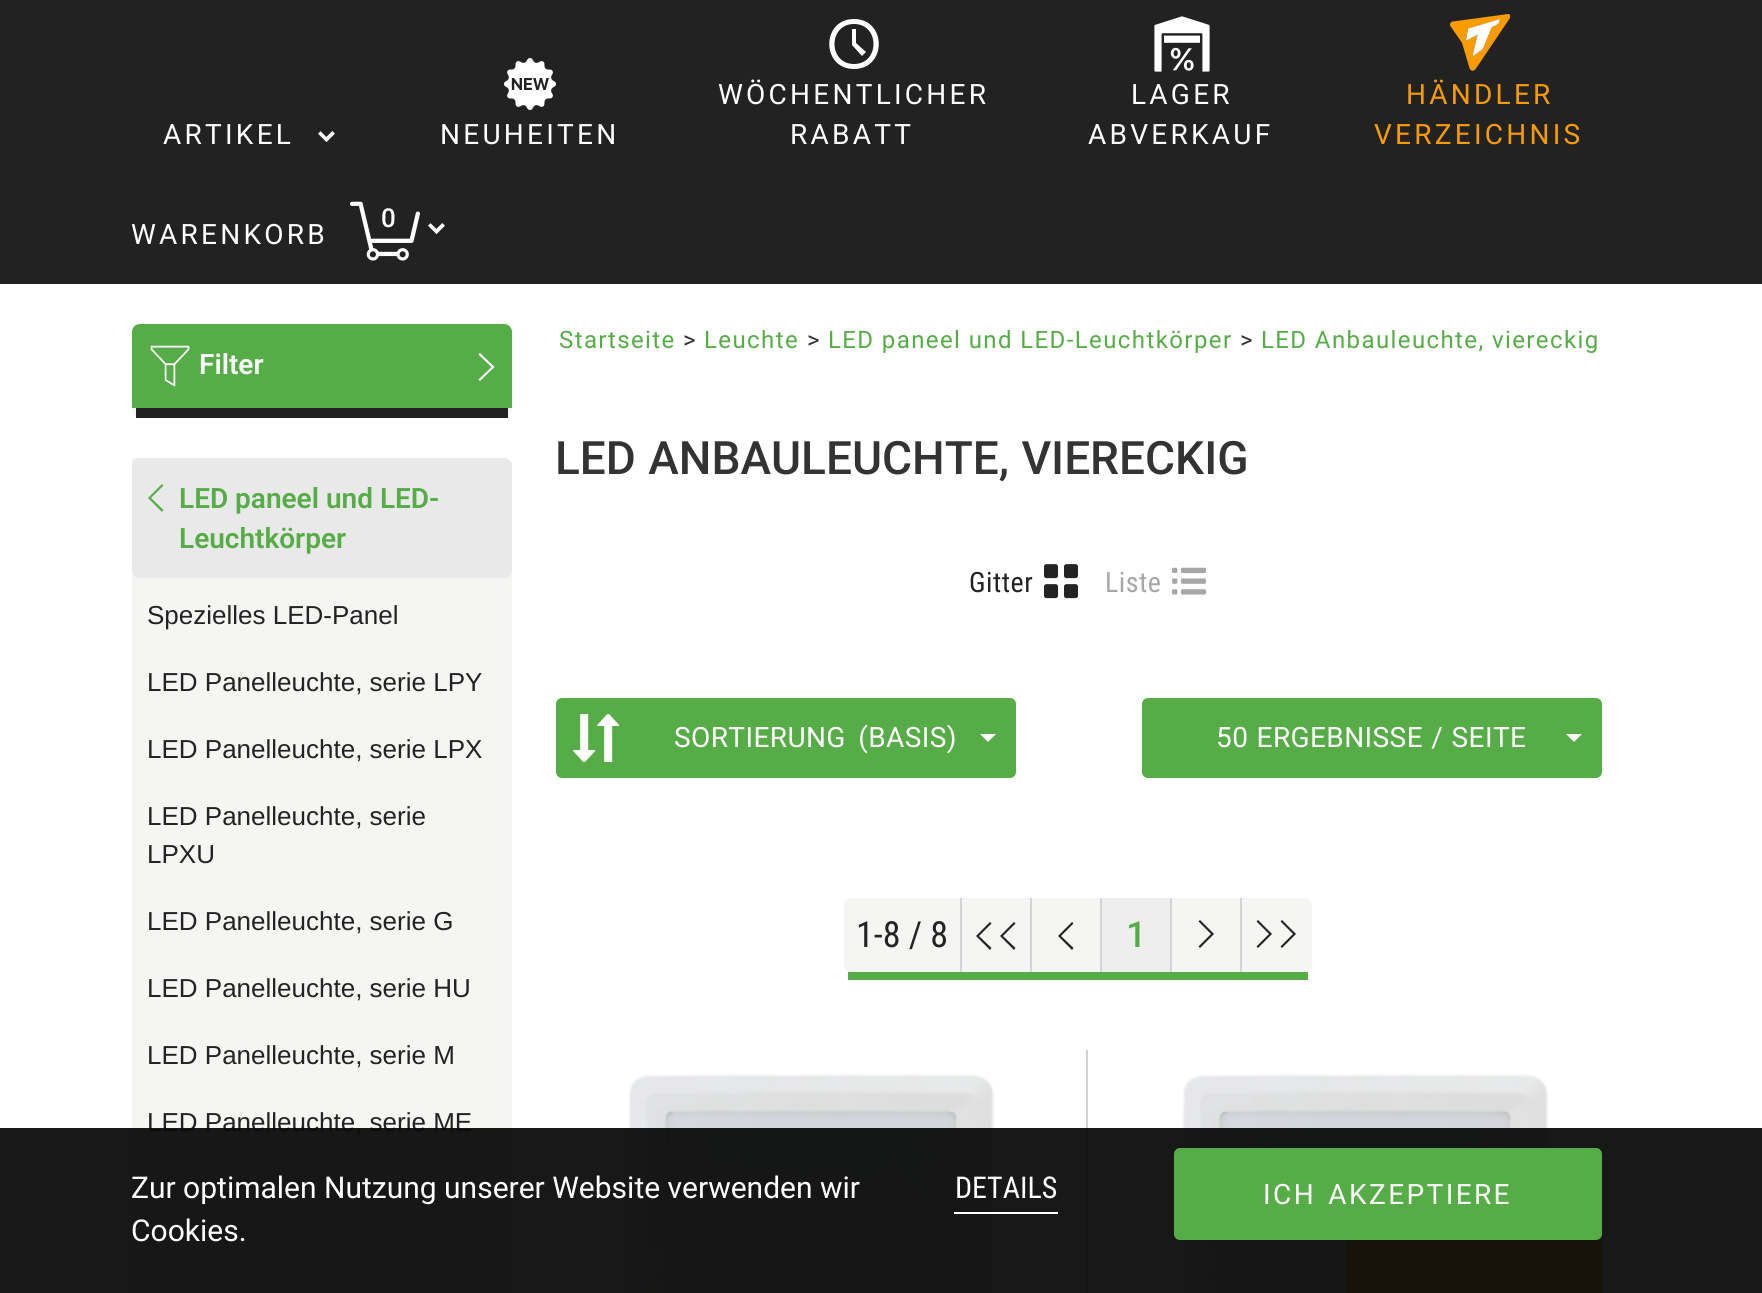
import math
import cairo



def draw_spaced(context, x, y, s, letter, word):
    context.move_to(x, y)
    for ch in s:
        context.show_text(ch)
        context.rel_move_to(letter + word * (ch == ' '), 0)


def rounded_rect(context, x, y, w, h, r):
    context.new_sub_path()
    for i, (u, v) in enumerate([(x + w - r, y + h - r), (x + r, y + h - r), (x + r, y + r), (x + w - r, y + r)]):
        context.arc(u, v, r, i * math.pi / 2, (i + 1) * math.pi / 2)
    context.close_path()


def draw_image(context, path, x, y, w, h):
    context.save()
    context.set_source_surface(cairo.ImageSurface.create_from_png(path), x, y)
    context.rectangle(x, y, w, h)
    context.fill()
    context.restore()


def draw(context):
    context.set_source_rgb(1, 1, 1)
    context.paint()
    context.set_source_rgb(34 / 255, 34 / 255, 34 / 255)
    context.rectangle(0, 0, 1762, 284)
    context.fill()
    draw_image(context, "images/1.png", 318, 131, 17, 12)
    draw_image(context, "images/2.png", 504, 58, 52, 52)
    context.set_source_rgb(1, 1, 1)
    context.new_path()
    context.move_to(854, 19)
    context.curve_to(821, 19, 821, 69, 854, 69)
    context.curve_to(887, 69, 887, 19, 854, 19)
    context.close_path()
    context.move_to(854, 24)
    context.curve_to(880, 24, 880, 64, 854, 64)
    context.curve_to(828, 64, 828, 24, 854, 24)
    context.close_path()
    context.move_to(852, 29)
    context.line_to(852, 45)
    context.line_to(862, 56)
    context.line_to(866, 52)
    context.line_to(856, 43)
    context.line_to(856, 29)
    context.close_path()
    context.fill()
    draw_image(context, "images/3.png", 1154, 16, 56, 56)
    draw_image(context, "images/4.png", 1450, 14, 60, 57)
    draw_image(context, "images/6.png", 428, 223, 17, 12)
    context.set_source_rgb(245 / 255, 245 / 255, 245 / 255)
    rounded_rect(context, 132, 324, 380, 94, 8)
    context.fill()
    context.set_source_rgb(34 / 255, 34 / 255, 34 / 255)
    context.rectangle(136, 408, 372, 10)
    context.fill()
    context.set_source_rgb(86 / 255, 172 / 255, 70 / 255)
    context.new_path()
    context.move_to(140, 324)
    context.line_to(504, 324)
    context.curve_to(508.5, 324, 512, 327.5, 512, 332)
    context.line_to(512, 408)
    context.line_to(132, 408)
    context.line_to(132, 332)
    context.curve_to(132, 327.5, 135.5, 324, 140, 324)
    context.close_path()
    context.fill()
    draw_image(context, "images/7.png", 150, 345, 40, 42)
    context.set_source_rgb(1, 1, 1)
    context.new_path()
    context.move_to(491.5, 367)
    context.line_to(478.5, 379.5)
    context.line_to(480, 381)
    context.line_to(494.5, 367)
    context.line_to(480, 353)
    context.line_to(478.5, 354.5)
    context.close_path()
    context.fill()
    context.set_source_rgb(245 / 255, 245 / 255, 243 / 255)
    context.new_path()
    context.move_to(132, 458)
    context.line_to(504, 458)
    context.curve_to(508.5, 458, 512, 461.5, 512, 466)
    context.line_to(512, 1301)
    context.line_to(132, 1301)
    context.close_path()
    context.fill()
    context.set_source_rgb(233 / 255, 233 / 255, 233 / 255)
    rounded_rect(context, 132, 458, 380, 120, 8)
    context.fill()
    context.set_source_rgb(86 / 255, 172 / 255, 70 / 255)
    context.new_path()
    context.move_to(151, 498)
    context.line_to(163.5, 485.5)
    context.line_to(162, 484)
    context.line_to(148, 498)
    context.line_to(162, 512)
    context.line_to(163.5, 510)
    context.close_path()
    context.fill()
    draw_image(context, "images/8.png", 1044, 564, 34, 35)
    draw_image(context, "images/9.png", 1172, 567, 34, 28)
    rounded_rect(context, 556, 698, 460, 80, 6)
    context.fill()
    draw_image(context, "images/10.png", 573, 714, 47, 48)
    context.set_source_rgb(1, 1, 1)
    context.new_path()
    context.move_to(980, 734)
    context.line_to(996, 734)
    context.line_to(988, 742)
    context.close_path()
    context.fill()
    context.set_source_rgb(86 / 255, 172 / 255, 70 / 255)
    rounded_rect(context, 1142, 698, 460, 80, 6)
    context.fill()
    context.set_source_rgb(1, 1, 1)
    context.new_path()
    context.move_to(1566, 734)
    context.line_to(1582, 734)
    context.line_to(1574, 742)
    context.close_path()
    context.fill()
    context.set_source_rgb(86 / 255, 172 / 255, 70 / 255)
    context.rectangle(848, 972, 460, 8)
    context.fill()
    context.set_source_rgb(245 / 255, 245 / 255, 243 / 255)
    context.new_path()
    context.move_to(852, 898)
    context.line_to(962, 898)
    context.line_to(962, 972)
    context.line_to(852, 972)
    context.curve_to(847.5, 972, 844, 968.5, 844, 964)
    context.line_to(844, 906)
    context.curve_to(844, 901.5, 847.5, 898, 852, 898)
    context.close_path()
    context.fill()
    context.set_source_rgb(212 / 255, 212 / 255, 212 / 255)
    context.rectangle(960, 898, 2, 74)
    context.fill()
    context.set_source_rgb(245 / 255, 245 / 255, 243 / 255)
    context.rectangle(962, 898, 68, 74)
    context.fill()
    context.set_source_rgb(212 / 255, 212 / 255, 212 / 255)
    context.rectangle(1030, 898, 2, 74)
    context.fill()
    context.set_source_rgb(35 / 255, 35 / 255, 35 / 255)
    context.new_path()
    context.move_to(979, 936)
    context.line_to(991.5, 923.5)
    context.line_to(990, 922)
    context.line_to(976, 936)
    context.line_to(990, 950)
    context.line_to(991.5, 948)
    context.close_path()
    context.move_to(1003, 936)
    context.line_to(1015.5, 923.5)
    context.line_to(1014, 922)
    context.line_to(1000, 936)
    context.line_to(1014, 950)
    context.line_to(1015.5, 948)
    context.close_path()
    context.fill()
    context.set_source_rgb(245 / 255, 245 / 255, 243 / 255)
    context.rectangle(1032, 898, 68, 74)
    context.fill()
    context.set_source_rgb(212 / 255, 212 / 255, 212 / 255)
    context.rectangle(1100, 898, 2, 74)
    context.fill()
    context.set_source_rgb(35 / 255, 35 / 255, 35 / 255)
    context.new_path()
    context.move_to(1061, 936)
    context.line_to(1073.5, 923.5)
    context.line_to(1072, 922)
    context.line_to(1058, 936)
    context.line_to(1072, 950)
    context.line_to(1073.5, 948)
    context.close_path()
    context.fill()
    context.set_source_rgb(238 / 255, 238 / 255, 238 / 255)
    context.rectangle(1102, 898, 68, 74)
    context.fill()
    context.set_source_rgb(212 / 255, 212 / 255, 212 / 255)
    context.rectangle(1170, 898, 2, 74)
    context.fill()
    context.set_source_rgb(245 / 255, 245 / 255, 243 / 255)
    context.rectangle(1172, 898, 68, 74)
    context.fill()
    context.set_source_rgb(212 / 255, 212 / 255, 212 / 255)
    context.rectangle(1240, 898, 2, 74)
    context.fill()
    context.set_source_rgb(35 / 255, 35 / 255, 35 / 255)
    context.new_path()
    context.move_to(1211, 934)
    context.line_to(1198.5, 946.5)
    context.line_to(1200, 948)
    context.line_to(1214, 934)
    context.line_to(1200, 920)
    context.line_to(1198.5, 921.5)
    context.close_path()
    context.fill()
    context.set_source_rgb(245 / 255, 245 / 255, 243 / 255)
    context.new_path()
    context.move_to(1242, 898)
    context.line_to(1304, 898)
    context.curve_to(1308.5, 898, 1312, 901.5, 1312, 906)
    context.line_to(1312, 964)
    context.curve_to(1312, 968.5, 1308.5, 972, 1304, 972)
    context.line_to(1242, 972)
    context.close_path()
    context.fill()
    context.set_source_rgb(35 / 255, 35 / 255, 35 / 255)
    context.new_path()
    context.move_to(1269, 934)
    context.line_to(1256.5, 946.5)
    context.line_to(1258, 948)
    context.line_to(1272, 934)
    context.line_to(1258, 920)
    context.line_to(1256.5, 921.5)
    context.close_path()
    context.move_to(1293, 934)
    context.line_to(1280.5, 946.5)
    context.line_to(1282, 948)
    context.line_to(1296, 934)
    context.line_to(1282, 920)
    context.line_to(1280.5, 921.5)
    context.close_path()
    context.fill()
    context.set_source_rgb(211 / 255, 211 / 255, 211 / 255)
    context.rectangle(1086, 1050, 2, 243)
    context.fill()
    draw_image(context, "images/11.png", 628, 1074, 366, 219)
    draw_image(context, "images/11.png", 1182, 1074, 366, 219)
    context.set_source_rgb(243 / 255, 156 / 255, 18 / 255)
    context.new_path()
    context.move_to(1354, 1234)
    context.line_to(1594, 1234)
    context.curve_to(1598.5, 1234, 1602, 1237.5, 1602, 1242)
    context.line_to(1602, 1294)
    context.line_to(1346, 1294)
    context.line_to(1346, 1242)
    context.curve_to(1346, 1237.5, 1349.5, 1234, 1354, 1234)
    context.close_path()
    context.fill()
    context.select_font_face("Roboto")
    context.set_font_size(28)
    context.set_source_rgb(1, 1, 1)
    draw_spaced(context, 163, 144, "ARTIKEL", 3.25, 0)
    draw_spaced(context, 440, 144, "NEUHEITEN", 3.25, 0)
    draw_spaced(context, 718, 104, "WÖCHENTLICHER", 3.25, 0)
    draw_spaced(context, 790, 144, "RABATT", 3.25, 0)
    draw_spaced(context, 1131, 104, "LAGER", 3.25, 0)
    draw_spaced(context, 1088, 144, "ABVERKAUF", 3.25, 0)
    context.set_source_rgb(250 / 255, 155 / 255, 0)
    draw_spaced(context, 1406, 104, "HÄNDLER", 3.25, 0)
    draw_spaced(context, 1374, 144, "VERZEICHNIS", 3.25, 0)
    context.select_font_face("Roboto Medium")
    context.set_font_size(26)
    context.set_source_rgb(1, 1, 1)
    context.move_to(381, 227)
    context.show_text("0")
    draw_image(context, "images/5.png", 350, 201, 70, 60)
    context.select_font_face("Roboto")
    context.set_font_size(28)
    draw_spaced(context, 131, 244, "WARENKORB", 3.25, 0)
    context.select_font_face("Roboto SemiBold")
    context.move_to(199, 374)
    context.show_text("Filter")
    context.set_source_rgb(86 / 255, 172 / 255, 70 / 255)
    context.move_to(179, 508)
    context.show_text("LED paneel und LED-")
    context.move_to(179, 548)
    context.show_text("Leuchtkörper")
    context.select_font_face("Liberation Sans")
    context.set_font_size(26)
    context.set_source_rgb(35 / 255, 35 / 255, 35 / 255)
    context.move_to(147, 624)
    context.show_text("Spezielles LED-Panel")
    context.move_to(147, 691)
    context.show_text("LED Panelleuchte, serie LPY")
    context.move_to(147, 758)
    context.show_text("LED Panelleuchte, serie LPX")
    context.move_to(147, 825)
    context.show_text("LED Panelleuchte, serie")
    context.move_to(147, 863)
    context.show_text("LPXU")
    context.move_to(147, 930)
    context.show_text("LED Panelleuchte, serie G")
    context.move_to(147, 997)
    context.show_text("LED Panelleuchte, serie HU")
    context.move_to(147, 1064)
    context.show_text("LED Panelleuchte, serie M")
    context.move_to(147, 1131)
    context.show_text("LED Panelleuchte, serie ME")
    context.select_font_face("Roboto")
    context.set_font_size(24)
    context.set_source_rgb(86 / 255, 172 / 255, 70 / 255)
    draw_spaced(context, 559, 348, "Startseite", 1.4, 0)
    context.set_source_rgb(51 / 255, 51 / 255, 51 / 255)
    draw_spaced(context, 683, 348, ">", 1.4, 0)
    context.set_source_rgb(86 / 255, 172 / 255, 70 / 255)
    draw_spaced(context, 704, 348, "Leuchte", 1.4, 0)
    context.set_source_rgb(51 / 255, 51 / 255, 51 / 255)
    draw_spaced(context, 807, 348, ">", 1.4, 0)
    context.set_source_rgb(86 / 255, 172 / 255, 70 / 255)
    draw_spaced(context, 828, 348, "LED paneel und LED-Leuchtkörper", 1.4, 0)
    context.set_source_rgb(51 / 255, 51 / 255, 51 / 255)
    draw_spaced(context, 1240, 348, ">", 1.4, 0)
    context.set_source_rgb(86 / 255, 172 / 255, 70 / 255)
    draw_spaced(context, 1261, 348, "LED Anbauleuchte, viereckig", 1.4, 0)
    context.select_font_face("Roboto Medium")
    context.set_font_size(46)
    context.set_source_rgb(51 / 255, 51 / 255, 51 / 255)
    draw_spaced(context, 555, 474, "LED ANBAULEUCHTE, VIERECKIG", 0, 1)
    context.select_font_face("Roboto Condensed")
    context.set_font_size(28)
    context.set_source_rgb(35 / 255, 35 / 255, 35 / 255)
    draw_spaced(context, 969, 592, "Gitter", 0.5, 0)
    context.set_source_rgb(167 / 255, 167 / 255, 167 / 255)
    draw_spaced(context, 1105, 592, "Liste", 0.5, 0)
    context.select_font_face("Roboto")
    context.set_source_rgb(1, 1, 1)
    draw_spaced(context, 674, 747, "SORTIERUNG (BASIS)", 0.4, 5)
    draw_spaced(context, 1216, 747, "50 ERGEBNISSE / SEITE", 0.4, 1)
    context.select_font_face("Roboto Condensed")
    context.set_font_size(36)
    context.set_source_rgb(35 / 255, 35 / 255, 35 / 255)
    context.move_to(856, 947)
    context.show_text("1-8 / 8")
    context.select_font_face("Roboto Medium")
    context.set_source_rgb(86 / 255, 172 / 255, 70 / 255)
    context.move_to(1126, 947)
    context.show_text("1")
    context.set_source_rgba(10 / 255, 10 / 255, 10 / 255, 0.94)
    context.rectangle(0, 1128, 1762, 165)
    context.fill()
    context.select_font_face("Roboto")
    context.set_font_size(30)
    context.set_source_rgb(1, 1, 1)
    context.move_to(131, 1198)
    context.show_text("Zur optimalen Nutzung unserer Website verwenden wir")
    context.move_to(131, 1241)
    context.show_text("Cookies.")
    context.rectangle(954, 1212, 104, 2)
    context.fill()
    context.select_font_face("Roboto Condensed")
    context.move_to(955, 1198)
    context.show_text("DETAILS")
    context.set_source_rgb(86 / 255, 172 / 255, 70 / 255)
    rounded_rect(context, 1174, 1148, 428, 92, 6)
    context.fill()
    context.select_font_face("Roboto")
    context.set_font_size(28)
    context.set_source_rgb(1, 1, 1)
    draw_spaced(context, 1263, 1204, "ICH AKZEPTIERE", 2.4, 3)


surface = cairo.ImageSurface(cairo.Format.RGB24, 1762, 1293)
context = cairo.Context(surface)
options = cairo.FontOptions()
options.set_hint_metrics(cairo.HintMetrics.OFF)
options.set_hint_style(cairo.HintStyle.NONE)
context.set_font_options(options)
context.set_miter_limit(4)
draw(context)
surface.write_to_png("out.png")
